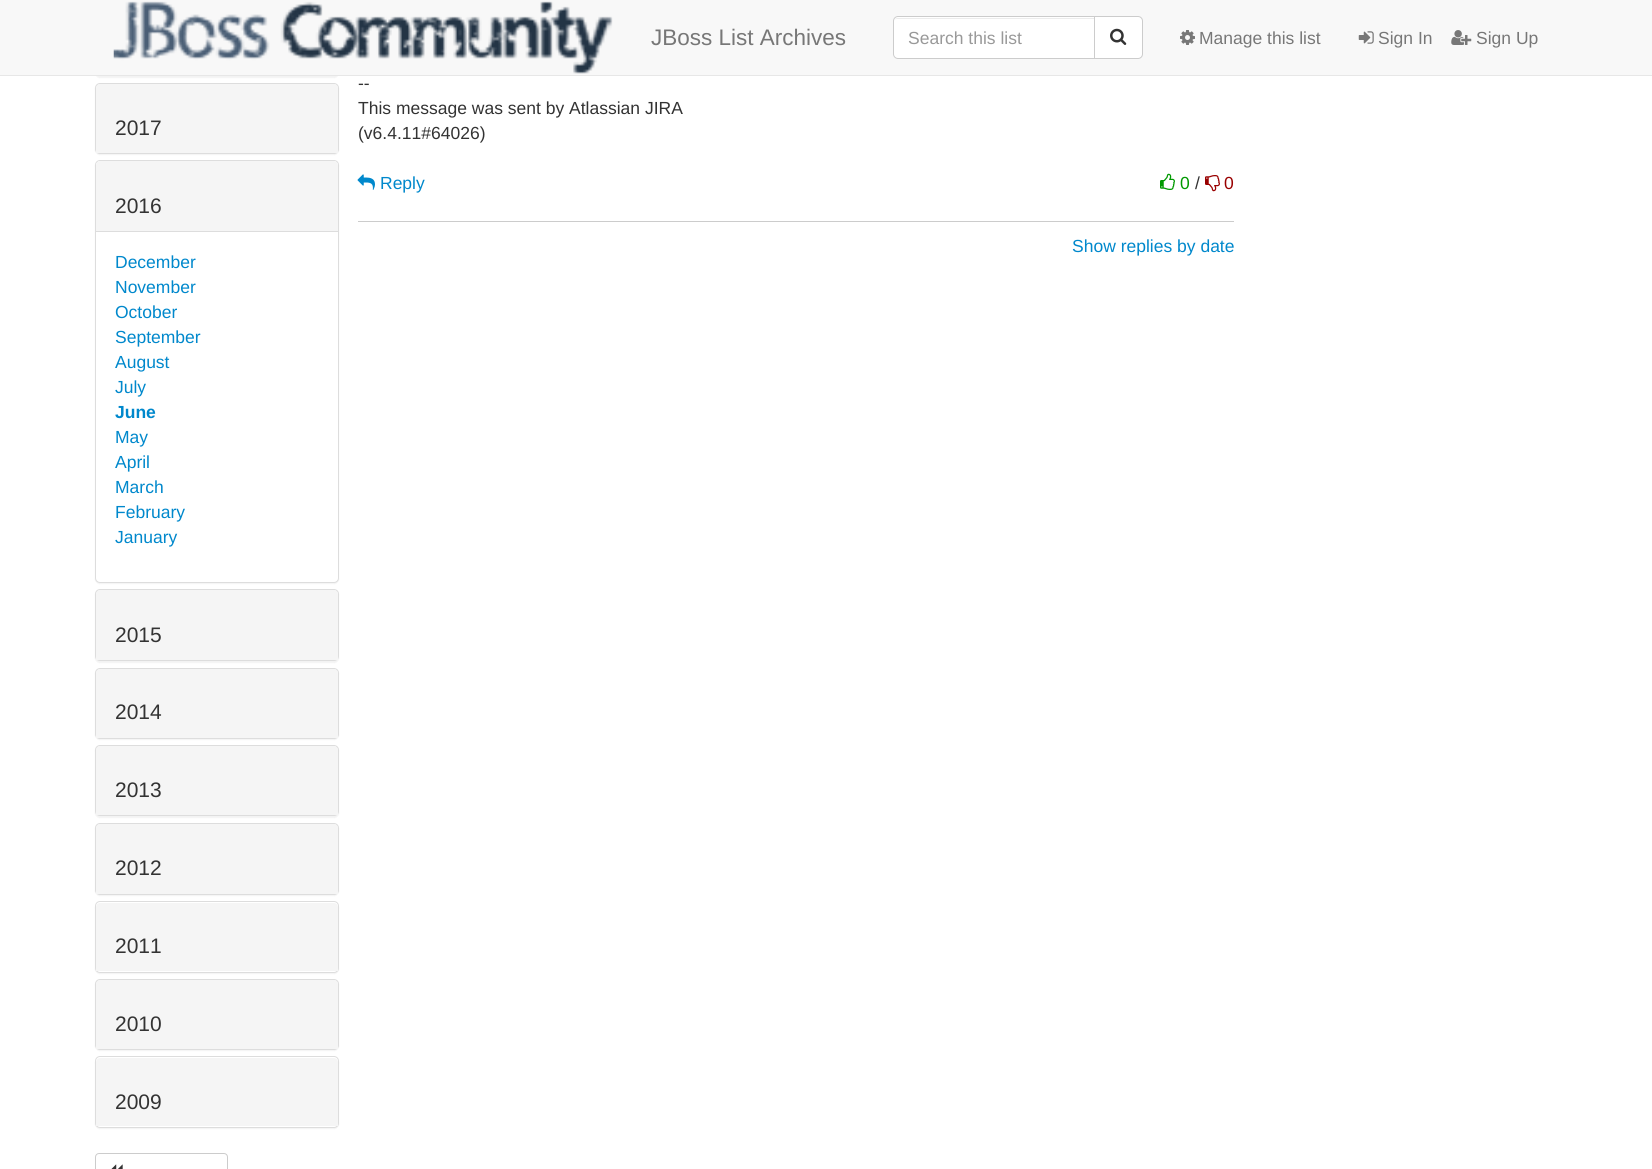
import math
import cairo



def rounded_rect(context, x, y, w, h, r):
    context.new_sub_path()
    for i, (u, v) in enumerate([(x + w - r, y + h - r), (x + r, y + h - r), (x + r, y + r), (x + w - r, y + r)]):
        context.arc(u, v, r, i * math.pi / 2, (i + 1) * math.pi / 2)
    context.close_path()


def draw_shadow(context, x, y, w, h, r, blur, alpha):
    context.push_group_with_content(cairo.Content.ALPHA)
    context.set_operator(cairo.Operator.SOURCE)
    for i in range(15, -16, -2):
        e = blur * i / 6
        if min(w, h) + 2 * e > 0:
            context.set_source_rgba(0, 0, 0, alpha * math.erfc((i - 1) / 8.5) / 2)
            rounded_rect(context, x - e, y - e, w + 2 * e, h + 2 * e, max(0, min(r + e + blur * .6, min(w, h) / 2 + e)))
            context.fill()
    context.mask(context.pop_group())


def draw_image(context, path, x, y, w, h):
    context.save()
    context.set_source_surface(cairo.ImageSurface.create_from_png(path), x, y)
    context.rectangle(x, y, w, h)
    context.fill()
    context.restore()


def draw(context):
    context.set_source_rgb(1, 1, 1)
    context.paint()
    context.set_source_rgb(0, 0, 0)
    draw_shadow(context, 95, 6, 244, 72, 5, 0.5, 0.05)
    context.set_source_rgb(248 / 255, 248 / 255, 248 / 255)
    context.rectangle(0, 0, 1652, 75)
    context.fill()
    context.set_source_rgb(231 / 255, 231 / 255, 231 / 255)
    context.rectangle(0, 75, 1652, 1)
    context.fill()
    draw_image(context, "images/1.png", 113, 1, 500, 73)
    context.set_source_rgb(1, 1, 1)
    context.new_path()
    context.move_to(898, 16)
    context.line_to(1095, 16)
    context.line_to(1095, 59)
    context.line_to(898, 59)
    context.curve_to(895, 59, 893, 57, 893, 54)
    context.line_to(893, 21)
    context.curve_to(893, 18, 895, 16, 898, 16)
    context.close_path()
    context.fill()
    context.set_source_rgb(236 / 255, 236 / 255, 236 / 255)
    context.new_path()
    context.move_to(898, 19)
    context.line_to(1094, 19)
    context.line_to(1094, 18)
    context.line_to(898, 18)
    context.curve_to(896, 18, 895, 19, 894, 20)
    context.curve_to(895, 19, 896, 19, 898, 19)
    context.close_path()
    context.fill()
    context.new_path()
    context.move_to(898, 16.5)
    context.line_to(1094.5, 16.5)
    context.line_to(1094.5, 58.5)
    context.line_to(898, 58.5)
    context.curve_to(895.5, 58.5, 893.5, 56.5, 893.5, 54)
    context.line_to(893.5, 21)
    context.curve_to(893.5, 18.5, 895.5, 16.5, 898, 16.5)
    context.close_path()
    context.set_source_rgb(204 / 255, 204 / 255, 204 / 255)
    context.set_line_width(1)
    context.stroke()
    context.set_source_rgb(1, 1, 1)
    context.new_path()
    context.move_to(1094.5, 16.5)
    context.line_to(1138, 16.5)
    context.curve_to(1140.5, 16.5, 1142.5, 18.5, 1142.5, 21)
    context.line_to(1142.5, 54)
    context.curve_to(1142.5, 56.5, 1140.5, 58.5, 1138, 58.5)
    context.line_to(1094.5, 58.5)
    context.close_path()
    context.fill_preserve()
    context.set_source_rgb(204 / 255, 204 / 255, 204 / 255)
    context.stroke()
    draw_image(context, "images/2.png", 1110, 28, 17, 17)
    draw_image(context, "images/3.png", 1180, 30, 15, 15)
    draw_image(context, "images/4.png", 1358, 31, 16, 13)
    draw_image(context, "images/5.png", 1451, 30, 21, 15)
    context.set_source_rgb(0, 0, 0)
    draw_shadow(context, 95, 84, 244, 71, 5, 0.5, 0.05)
    rounded_rect(context, 95.5, 83.5, 243, 70, 4.5)
    context.set_source_rgb(221 / 255, 221 / 255, 221 / 255)
    context.stroke()
    context.set_source_rgb(245 / 255, 245 / 255, 245 / 255)
    context.new_path()
    context.move_to(100, 84)
    context.line_to(334, 84)
    context.curve_to(336, 84, 338, 86, 338, 88)
    context.line_to(338, 153)
    context.line_to(96, 153)
    context.line_to(96, 88)
    context.curve_to(96, 86, 98, 84, 100, 84)
    context.close_path()
    context.fill()
    context.set_source_rgb(0, 0, 0)
    draw_shadow(context, 95, 161, 244, 423, 5, 0.5, 0.05)
    context.set_source_rgb(1, 1, 1)
    rounded_rect(context, 95.5, 160.5, 243, 422, 4.5)
    context.fill_preserve()
    context.set_source_rgb(221 / 255, 221 / 255, 221 / 255)
    context.stroke()
    context.set_source_rgb(245 / 255, 245 / 255, 245 / 255)
    context.new_path()
    context.move_to(100, 161)
    context.line_to(334, 161)
    context.curve_to(336, 161, 338, 163, 338, 165)
    context.line_to(338, 231)
    context.line_to(96, 231)
    context.line_to(96, 165)
    context.curve_to(96, 163, 98, 161, 100, 161)
    context.close_path()
    context.fill()
    context.set_source_rgb(221 / 255, 221 / 255, 221 / 255)
    context.rectangle(96, 231, 242, 1)
    context.fill()
    context.set_source_rgb(0, 0, 0)
    draw_shadow(context, 95, 590, 244, 73, 5, 0.5, 0.05)
    rounded_rect(context, 95.5, 589.5, 243, 71, 4.5)
    context.set_source_rgb(221 / 255, 221 / 255, 221 / 255)
    context.stroke()
    context.set_source_rgb(245 / 255, 245 / 255, 245 / 255)
    context.new_path()
    context.move_to(100, 590)
    context.line_to(334, 590)
    context.curve_to(336, 590, 338, 592, 338, 594)
    context.line_to(338, 660)
    context.line_to(96, 660)
    context.line_to(96, 594)
    context.curve_to(96, 592, 98, 590, 100, 590)
    context.close_path()
    context.fill()
    context.set_source_rgb(0, 0, 0)
    draw_shadow(context, 95, 669, 244, 71, 5, 0.5, 0.05)
    rounded_rect(context, 95.5, 668.5, 243, 70, 4.5)
    context.set_source_rgb(221 / 255, 221 / 255, 221 / 255)
    context.stroke()
    context.set_source_rgb(245 / 255, 245 / 255, 245 / 255)
    context.new_path()
    context.move_to(100, 669)
    context.line_to(334, 669)
    context.curve_to(336, 669, 338, 671, 338, 673)
    context.line_to(338, 738)
    context.line_to(96, 738)
    context.line_to(96, 673)
    context.curve_to(96, 671, 98, 669, 100, 669)
    context.close_path()
    context.fill()
    context.set_source_rgb(0, 0, 0)
    draw_shadow(context, 95, 746, 244, 72, 5, 0.5, 0.05)
    rounded_rect(context, 95.5, 745.5, 243, 70, 4.5)
    context.set_source_rgb(221 / 255, 221 / 255, 221 / 255)
    context.stroke()
    context.set_source_rgb(245 / 255, 245 / 255, 245 / 255)
    context.new_path()
    context.move_to(100, 746)
    context.line_to(334, 746)
    context.curve_to(336, 746, 338, 748, 338, 750)
    context.line_to(338, 815)
    context.line_to(96, 815)
    context.line_to(96, 750)
    context.curve_to(96, 748, 98, 746, 100, 746)
    context.close_path()
    context.fill()
    context.set_source_rgb(0, 0, 0)
    draw_shadow(context, 95, 824, 244, 72, 5, 0.5, 0.05)
    rounded_rect(context, 95.5, 823.5, 243, 71, 4.5)
    context.set_source_rgb(221 / 255, 221 / 255, 221 / 255)
    context.stroke()
    context.set_source_rgb(245 / 255, 245 / 255, 245 / 255)
    context.new_path()
    context.move_to(100, 824)
    context.line_to(334, 824)
    context.curve_to(336, 824, 338, 826, 338, 828)
    context.line_to(338, 894)
    context.line_to(96, 894)
    context.line_to(96, 828)
    context.curve_to(96, 826, 98, 824, 100, 824)
    context.close_path()
    context.fill()
    context.set_source_rgb(0, 0, 0)
    draw_shadow(context, 95, 903, 244, 71, 5, 0.5, 0.05)
    context.set_source_rgb(1, 1, 1)
    rounded_rect(context, 95.5, 901.5, 243, 71, 4.5)
    context.fill_preserve()
    context.set_source_rgb(221 / 255, 221 / 255, 221 / 255)
    context.stroke()
    context.set_source_rgb(245 / 255, 245 / 255, 245 / 255)
    context.new_path()
    context.move_to(100, 903)
    context.line_to(334, 903)
    context.curve_to(336, 903, 338, 905, 338, 907)
    context.line_to(338, 971)
    context.line_to(96, 971)
    context.line_to(96, 907)
    context.curve_to(96, 905, 98, 903, 100, 903)
    context.close_path()
    context.fill()
    context.set_source_rgb(0, 0, 0)
    draw_shadow(context, 95, 980, 244, 71, 5, 0.5, 0.05)
    rounded_rect(context, 95.5, 979.5, 243, 70, 4.5)
    context.set_source_rgb(221 / 255, 221 / 255, 221 / 255)
    context.stroke()
    context.set_source_rgb(245 / 255, 245 / 255, 245 / 255)
    context.new_path()
    context.move_to(100, 980)
    context.line_to(334, 980)
    context.curve_to(336, 980, 338, 982, 338, 984)
    context.line_to(338, 1049)
    context.line_to(96, 1049)
    context.line_to(96, 984)
    context.curve_to(96, 982, 98, 980, 100, 980)
    context.close_path()
    context.fill()
    context.set_source_rgb(0, 0, 0)
    draw_shadow(context, 95, 1058, 244, 71, 5, 0.5, 0.05)
    context.set_source_rgb(1, 1, 1)
    rounded_rect(context, 95.5, 1056.5, 243, 71, 4.5)
    context.fill_preserve()
    context.set_source_rgb(221 / 255, 221 / 255, 221 / 255)
    context.stroke()
    context.set_source_rgb(245 / 255, 245 / 255, 245 / 255)
    context.new_path()
    context.move_to(100, 1058)
    context.line_to(334, 1058)
    context.curve_to(336, 1058, 338, 1060, 338, 1062)
    context.line_to(338, 1126)
    context.line_to(96, 1126)
    context.line_to(96, 1062)
    context.curve_to(96, 1060, 98, 1058, 100, 1058)
    context.close_path()
    context.fill()
    rounded_rect(context, 95.5, 1153.5, 132, 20, 3.5)
    context.set_source_rgb(204 / 255, 204 / 255, 204 / 255)
    context.stroke()
    draw_image(context, "images/6.png", 111, 1164, 12, 5)
    context.rectangle(358, 221, 876, 1)
    context.fill()
    draw_image(context, "images/7.png", 357, 174, 18, 16)
    draw_image(context, "images/8.png", 1160, 173, 15, 17)
    draw_image(context, "images/9.png", 1205, 175, 15, 17)
    context.select_font_face("Liberation Sans")
    context.set_font_size(22.5)
    context.set_source_rgb(119 / 255, 119 / 255, 119 / 255)
    context.move_to(651, 45)
    context.show_text("JBoss List Archives")
    context.set_font_size(17.5)
    context.set_source_rgb(153 / 255, 153 / 255, 153 / 255)
    context.move_to(908, 44)
    context.show_text("Search this list")
    context.set_source_rgb(119 / 255, 119 / 255, 119 / 255)
    context.move_to(1199, 44)
    context.show_text("Manage this list")
    context.move_to(1378, 44)
    context.show_text("Sign In")
    context.move_to(1476, 44)
    context.show_text("Sign Up")
    context.set_font_size(21)
    context.set_source_rgb(51 / 255, 51 / 255, 51 / 255)
    context.move_to(115, 135)
    context.show_text("2017")
    context.move_to(115, 213)
    context.show_text("2016")
    context.set_font_size(17.5)
    context.set_source_rgb(0, 136 / 255, 204 / 255)
    context.move_to(115, 268)
    context.show_text("December")
    context.move_to(115, 293)
    context.show_text("November")
    context.move_to(115, 318)
    context.show_text("October")
    context.move_to(115, 343)
    context.show_text("September")
    context.move_to(115, 368)
    context.show_text("August")
    context.move_to(115, 393)
    context.show_text("July")
    context.select_font_face("Liberation Sans", cairo.FontSlant.NORMAL, cairo.FontWeight.BOLD)
    context.move_to(115, 418)
    context.show_text("June")
    context.select_font_face("Liberation Sans")
    context.move_to(115, 443)
    context.show_text("May")
    context.move_to(115, 468)
    context.show_text("April")
    context.move_to(115, 493)
    context.show_text("March")
    context.move_to(115, 518)
    context.show_text("February")
    context.move_to(115, 543)
    context.show_text("January")
    context.set_font_size(21)
    context.set_source_rgb(51 / 255, 51 / 255, 51 / 255)
    context.move_to(115, 642)
    context.show_text("2015")
    context.move_to(115, 719)
    context.show_text("2014")
    context.move_to(115, 797)
    context.show_text("2013")
    context.move_to(115, 875)
    context.show_text("2012")
    context.move_to(115, 953)
    context.show_text("2011")
    context.move_to(115, 1031)
    context.show_text("2010")
    context.move_to(115, 1109)
    context.show_text("2009")
    context.set_font_size(17.5)
    context.move_to(358, 89)
    context.show_text("--")
    context.move_to(358, 114)
    context.show_text("This message was sent by Atlassian JIRA")
    context.move_to(358, 139)
    context.show_text("(v6.4.11#64026)")
    context.set_source_rgb(0, 136 / 255, 204 / 255)
    context.move_to(380, 189)
    context.show_text("Reply")
    context.set_source_rgb(0, 153 / 255, 0)
    context.move_to(1180, 189)
    context.show_text("0")
    context.set_source_rgb(51 / 255, 51 / 255, 51 / 255)
    context.move_to(1195, 189)
    context.show_text("/")
    context.set_source_rgb(153 / 255, 0, 0)
    context.move_to(1224, 189)
    context.show_text("0")
    context.set_source_rgb(0, 136 / 255, 204 / 255)
    context.move_to(1072, 252)
    context.show_text("Show replies by date")


surface = cairo.ImageSurface(cairo.Format.RGB24, 1652, 1169)
context = cairo.Context(surface)
options = cairo.FontOptions()
options.set_hint_metrics(cairo.HintMetrics.OFF)
options.set_hint_style(cairo.HintStyle.NONE)
context.set_font_options(options)
context.set_miter_limit(4)
draw(context)
surface.write_to_png("out.png")
